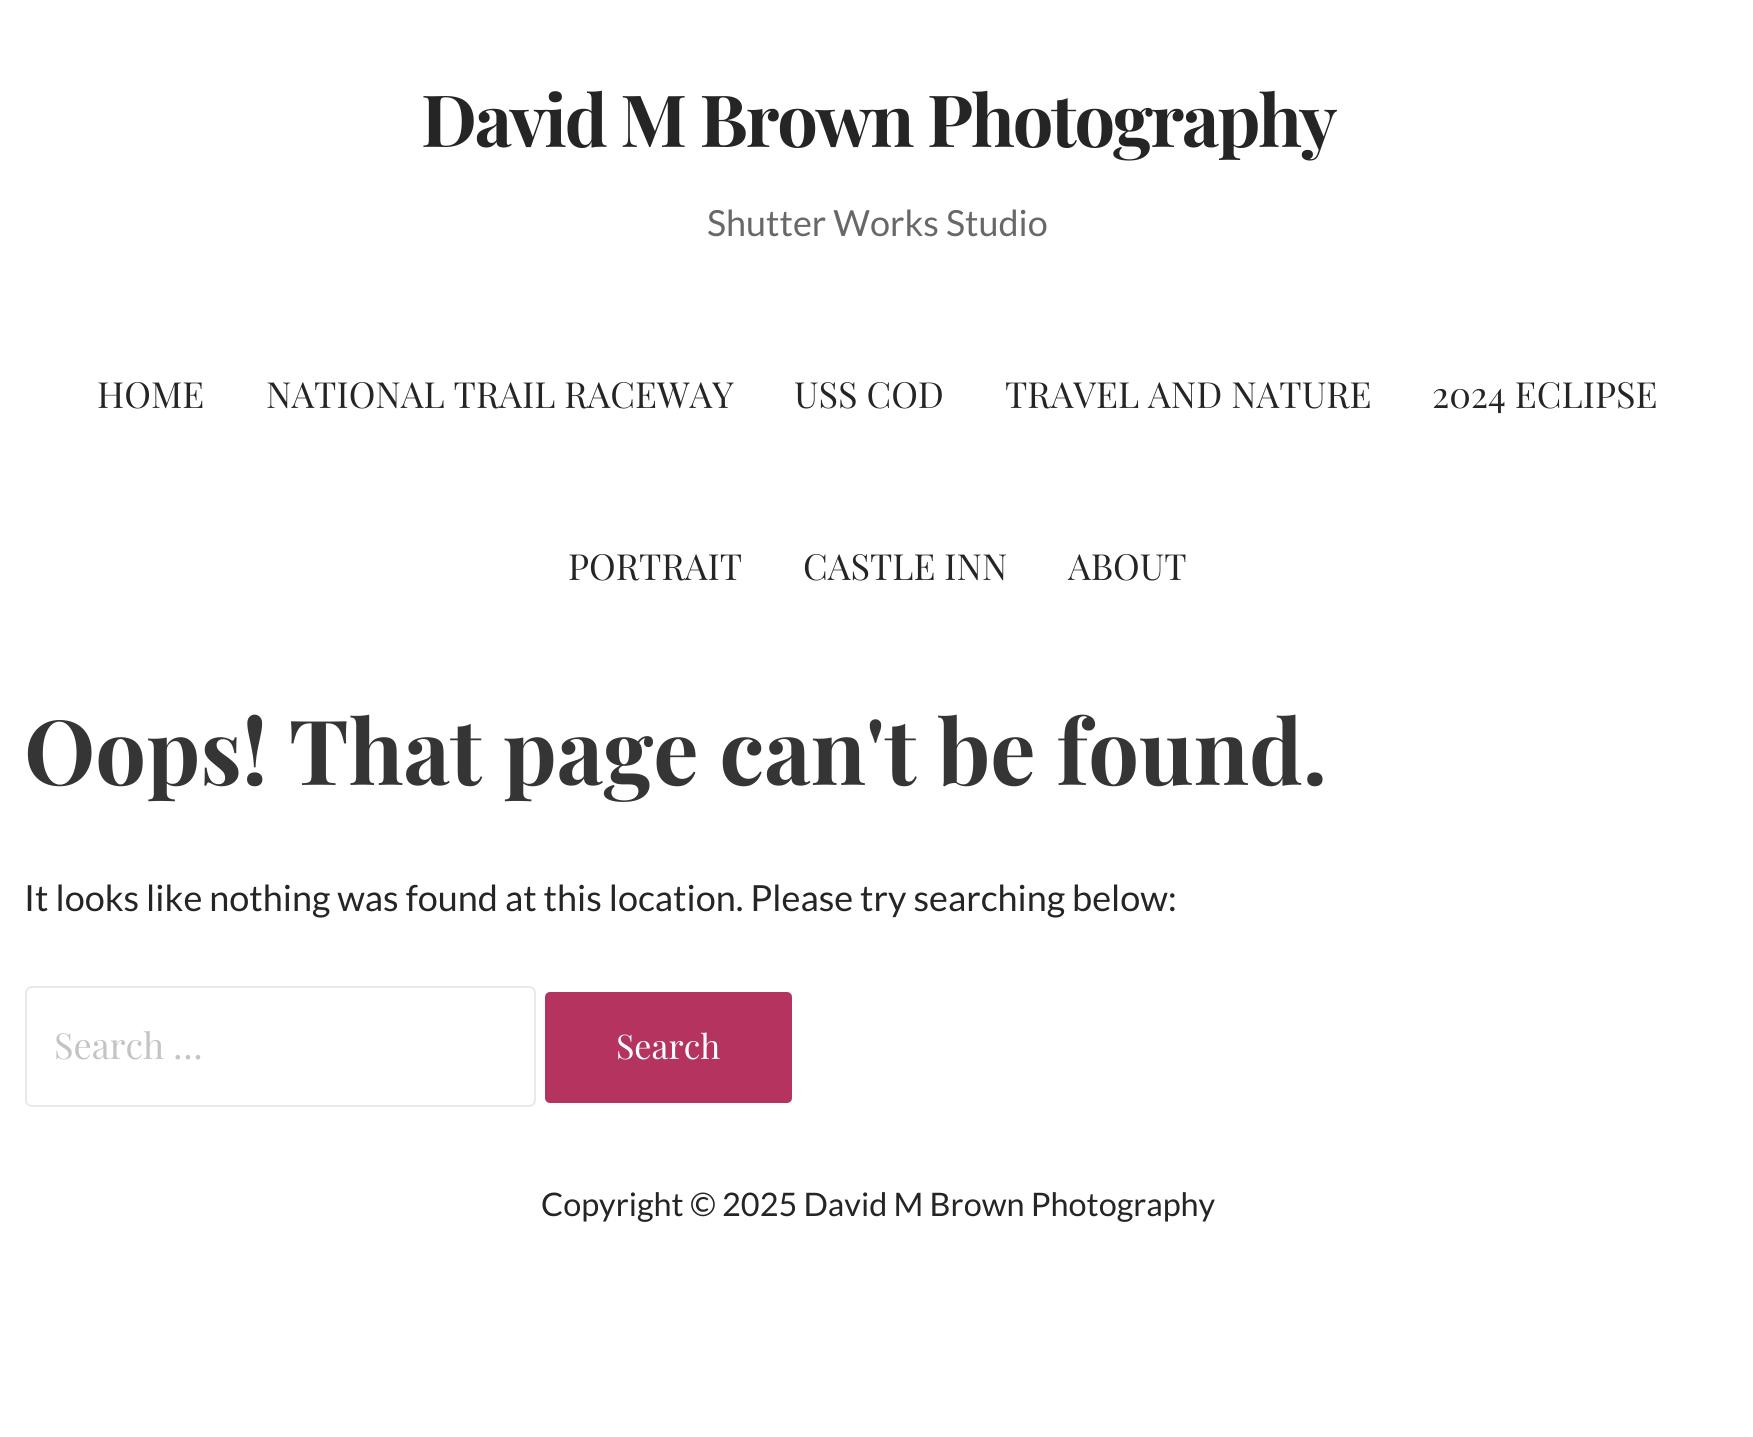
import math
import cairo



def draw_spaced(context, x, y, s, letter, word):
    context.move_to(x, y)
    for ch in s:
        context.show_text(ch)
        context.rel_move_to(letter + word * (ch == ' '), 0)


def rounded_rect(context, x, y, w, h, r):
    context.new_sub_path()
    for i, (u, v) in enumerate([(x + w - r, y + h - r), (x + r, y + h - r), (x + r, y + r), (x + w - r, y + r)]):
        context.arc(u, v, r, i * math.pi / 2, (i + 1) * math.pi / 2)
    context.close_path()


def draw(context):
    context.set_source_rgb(1, 1, 1)
    context.paint()
    rounded_rect(context, 26, 987, 509, 119, 6)
    context.set_source_rgb(233 / 255, 233 / 255, 233 / 255)
    context.stroke()
    context.set_source_rgb(181 / 255, 52 / 255, 95 / 255)
    rounded_rect(context, 545, 992, 247, 111, 5)
    context.fill()
    context.select_font_face("Playfair Display", cairo.FontSlant.NORMAL, cairo.FontWeight.BOLD)
    context.set_font_size(72)
    context.set_source_rgb(37 / 255, 37 / 255, 37 / 255)
    draw_spaced(context, 421, 147, "David M Brown Photography", -2.15, 0)
    context.select_font_face("Lato")
    context.set_font_size(36)
    context.set_source_rgb(104 / 255, 104 / 255, 104 / 255)
    context.move_to(707, 236)
    context.show_text("Shutter Works Studio")
    context.select_font_face("Playfair Display")
    context.set_source_rgb(37 / 255, 37 / 255, 37 / 255)
    context.move_to(97, 408)
    context.show_text("HOME")
    context.move_to(266, 408)
    context.show_text("NATIONAL TRAIL RACEWAY")
    context.move_to(794, 408)
    context.show_text("USS COD")
    context.move_to(1005, 408)
    context.show_text("TRAVEL AND NATURE")
    context.move_to(1432, 408)
    context.show_text("2024 ECLIPSE")
    context.move_to(568, 580)
    context.show_text("PORTRAIT")
    context.move_to(803, 580)
    context.show_text("CASTLE INN")
    context.move_to(1068, 580)
    context.show_text("ABOUT")
    context.select_font_face("Playfair Display", cairo.FontSlant.NORMAL, cairo.FontWeight.BOLD)
    context.set_font_size(90)
    context.set_source_rgb(53 / 255, 53 / 255, 53 / 255)
    context.move_to(24, 785)
    context.show_text("Oops! That page can't be found.")
    context.select_font_face("Lato")
    context.set_font_size(36)
    context.set_source_rgb(37 / 255, 37 / 255, 37 / 255)
    context.move_to(24, 911)
    context.show_text("It looks like nothing was found at this location. Please try searching below:")
    context.select_font_face("Playfair Display")
    context.set_source_rgb(196 / 255, 196 / 255, 196 / 255)
    context.move_to(54, 1059)
    context.show_text("Search …")
    context.set_font_size(34)
    context.set_source_rgb(1, 1, 1)
    context.move_to(616, 1059)
    context.show_text("Search")
    context.select_font_face("Lato")
    context.set_font_size(32.4)
    context.set_source_rgb(37 / 255, 37 / 255, 37 / 255)
    context.move_to(541, 1216)
    context.show_text("Copyright © 2025 David M Brown Photography")


surface = cairo.ImageSurface(cairo.Format.RGB24, 1753, 1437)
context = cairo.Context(surface)
options = cairo.FontOptions()
options.set_hint_metrics(cairo.HintMetrics.OFF)
options.set_hint_style(cairo.HintStyle.NONE)
context.set_font_options(options)
context.set_miter_limit(4)
draw(context)
surface.write_to_png("out.png")
